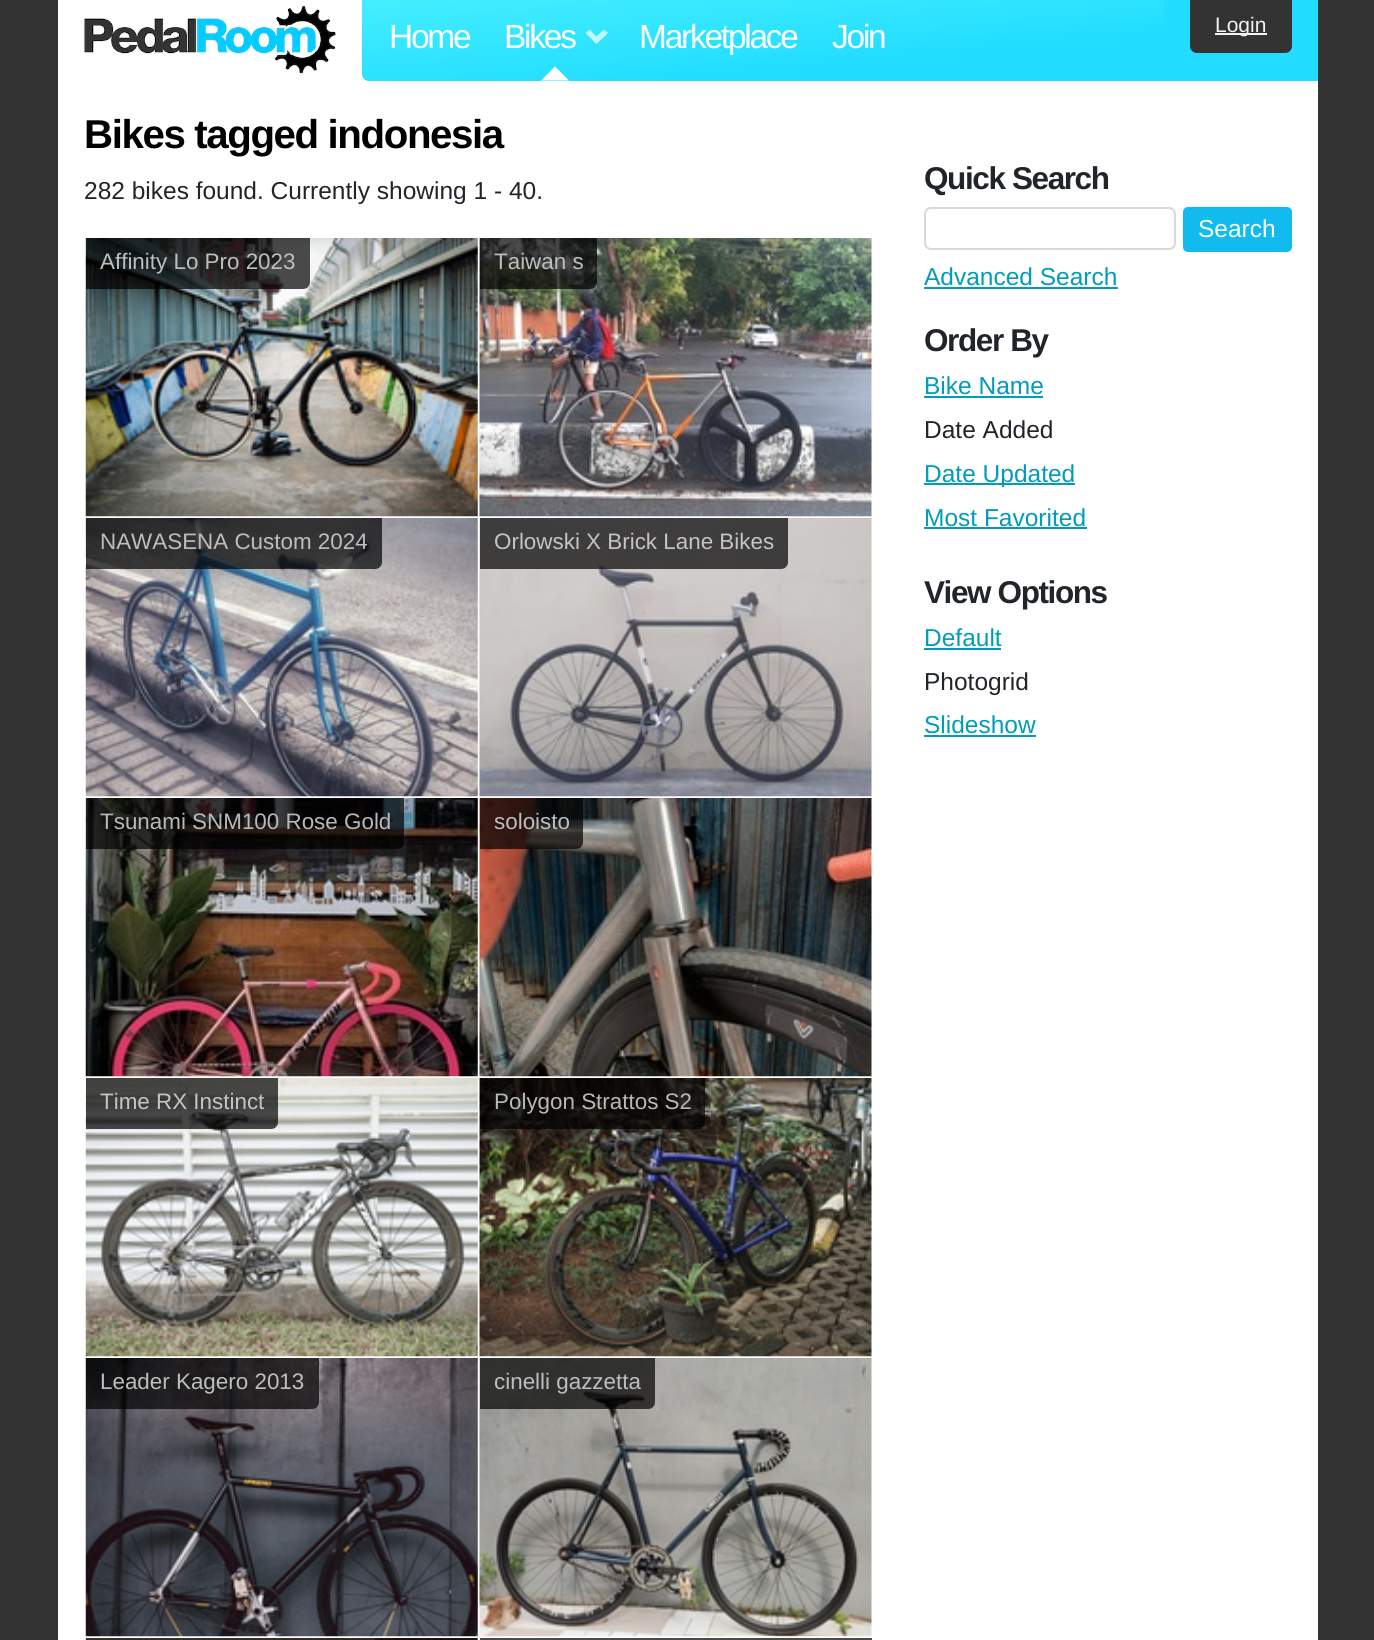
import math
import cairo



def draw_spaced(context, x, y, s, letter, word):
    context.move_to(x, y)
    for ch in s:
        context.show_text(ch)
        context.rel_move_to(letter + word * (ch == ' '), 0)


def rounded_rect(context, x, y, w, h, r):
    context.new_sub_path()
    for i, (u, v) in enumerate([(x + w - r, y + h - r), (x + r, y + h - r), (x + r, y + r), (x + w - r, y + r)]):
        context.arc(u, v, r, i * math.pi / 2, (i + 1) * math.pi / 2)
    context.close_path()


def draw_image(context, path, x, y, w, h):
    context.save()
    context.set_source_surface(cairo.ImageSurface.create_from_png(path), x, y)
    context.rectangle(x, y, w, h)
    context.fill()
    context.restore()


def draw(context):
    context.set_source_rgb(51 / 255, 51 / 255, 51 / 255)
    context.paint()
    context.set_source_rgb(1, 1, 1)
    context.rectangle(58, 0, 1260, 1640)
    context.fill()
    draw_image(context, "images/1.png", 84, 6, 252, 68)
    gradient = cairo.LinearGradient(755, -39, 771, 120)
    gradient.add_color_stop_rgba(0, 68 / 255, 238 / 255, 1, 1)
    gradient.add_color_stop_rgba(0.7, 34 / 255, 221 / 255, 1, 1)
    context.set_source(gradient)
    context.new_path()
    context.move_to(362, 0)
    context.line_to(1164, 0)
    context.line_to(1164, 81)
    context.line_to(369, 81)
    context.curve_to(365, 81, 362, 78, 362, 74)
    context.close_path()
    context.fill()
    context.set_source_rgba(1, 1, 1, 0.7)
    context.new_path()
    context.move_to(608, 33)
    context.line_to(596.5, 44)
    context.line_to(596.5, 36.5)
    context.line_to(604, 29.5)
    context.close_path()
    context.fill()
    context.new_path()
    context.move_to(596.5, 44)
    context.line_to(585.5, 33)
    context.line_to(589.5, 29.5)
    context.line_to(596.5, 36.5)
    context.close_path()
    context.fill()
    context.set_source_rgb(1, 1, 1)
    context.new_path()
    context.move_to(569, 80.5)
    context.line_to(541, 80.5)
    context.line_to(555, 66.5)
    context.close_path()
    context.fill()
    context.set_source_rgb(34 / 255, 221 / 255, 1)
    context.rectangle(1164, 0, 154, 81)
    context.fill()
    context.set_source_rgb(51 / 255, 51 / 255, 51 / 255)
    context.new_path()
    context.move_to(1190, 0)
    context.line_to(1292, 0)
    context.line_to(1292, 46)
    context.curve_to(1292, 50, 1289, 53, 1285, 53)
    context.line_to(1197, 53)
    context.curve_to(1193, 53, 1190, 50, 1190, 46)
    context.close_path()
    context.fill()
    context.set_source_rgb(242 / 255, 242 / 255, 242 / 255)
    context.rectangle(1215, 33, 52, 2)
    context.fill()
    context.set_source_rgb(77 / 255, 77 / 255, 77 / 255)
    context.rectangle(871, 1638, 1, 2)
    context.fill()
    draw_image(context, "images/2.png", 85, 238, 393, 279)
    context.set_source_rgba(0, 0, 0, 0.7)
    context.new_path()
    context.move_to(86, 238)
    context.line_to(310, 238)
    context.line_to(310, 282)
    context.curve_to(310, 286, 307, 289, 303, 289)
    context.line_to(86, 289)
    context.close_path()
    context.fill()
    draw_image(context, "images/3.png", 479, 238, 393, 279)
    context.new_path()
    context.move_to(480, 238)
    context.line_to(597, 238)
    context.line_to(597, 282)
    context.curve_to(597, 286, 594, 289, 590, 289)
    context.line_to(480, 289)
    context.close_path()
    context.fill()
    draw_image(context, "images/4.png", 85, 518, 393, 279)
    context.new_path()
    context.move_to(86, 518)
    context.line_to(382, 518)
    context.line_to(382, 562)
    context.curve_to(382, 566, 379, 569, 375, 569)
    context.line_to(86, 569)
    context.close_path()
    context.fill()
    draw_image(context, "images/5.png", 479, 518, 393, 279)
    context.new_path()
    context.move_to(480, 518)
    context.line_to(788, 518)
    context.line_to(788, 562)
    context.curve_to(788, 566, 785, 569, 781, 569)
    context.line_to(480, 569)
    context.close_path()
    context.fill()
    draw_image(context, "images/6.png", 85, 798, 393, 279)
    context.new_path()
    context.move_to(86, 798)
    context.line_to(404, 798)
    context.line_to(404, 842)
    context.curve_to(404, 846, 401, 849, 397, 849)
    context.line_to(86, 849)
    context.close_path()
    context.fill()
    draw_image(context, "images/7.png", 479, 798, 393, 279)
    context.new_path()
    context.move_to(480, 798)
    context.line_to(583, 798)
    context.line_to(583, 842)
    context.curve_to(583, 846, 580, 849, 576, 849)
    context.line_to(480, 849)
    context.close_path()
    context.fill()
    draw_image(context, "images/8.png", 85, 1078, 393, 279)
    context.new_path()
    context.move_to(86, 1078)
    context.line_to(278, 1078)
    context.line_to(278, 1122)
    context.curve_to(278, 1126, 275, 1129, 271, 1129)
    context.line_to(86, 1129)
    context.close_path()
    context.fill()
    draw_image(context, "images/9.png", 479, 1078, 393, 279)
    context.new_path()
    context.move_to(480, 1078)
    context.line_to(705, 1078)
    context.line_to(705, 1122)
    context.curve_to(705, 1126, 702, 1129, 698, 1129)
    context.line_to(480, 1129)
    context.close_path()
    context.fill()
    draw_image(context, "images/10.png", 85, 1358, 393, 279)
    context.new_path()
    context.move_to(86, 1358)
    context.line_to(319, 1358)
    context.line_to(319, 1402)
    context.curve_to(319, 1406, 316, 1409, 312, 1409)
    context.line_to(86, 1409)
    context.close_path()
    context.fill()
    draw_image(context, "images/11.png", 479, 1358, 393, 279)
    context.new_path()
    context.move_to(480, 1358)
    context.line_to(655, 1358)
    context.line_to(655, 1402)
    context.curve_to(655, 1406, 652, 1409, 648, 1409)
    context.line_to(480, 1409)
    context.close_path()
    context.fill()
    draw_image(context, "images/12.png", 85, 1638, 393, 2)
    draw_image(context, "images/13.png", 479, 1638, 393, 2)
    rounded_rect(context, 925, 208, 250, 41, 6)
    context.set_source_rgb(217 / 255, 217 / 255, 217 / 255)
    context.stroke()
    context.set_source_rgb(17 / 255, 187 / 255, 238 / 255)
    rounded_rect(context, 1184, 208, 107, 43, 4)
    context.fill_preserve()
    context.stroke()
    context.set_source_rgb(0, 156 / 255, 186 / 255)
    context.rectangle(924, 287, 194, 2)
    context.fill()
    context.rectangle(924, 396, 119, 2)
    context.fill()
    context.rectangle(924, 483, 151, 2)
    context.fill()
    context.rectangle(924, 527, 163, 2)
    context.fill()
    context.rectangle(924, 648, 77, 2)
    context.fill()
    context.rectangle(924, 735, 112, 2)
    context.fill()
    context.select_font_face("Liberation Sans")
    context.set_font_size(33.5)
    context.set_source_rgb(1, 1, 1)
    draw_spaced(context, 389, 48, "Home", -2.25, 0)
    draw_spaced(context, 504, 48, "Bikes", -2.25, 0)
    draw_spaced(context, 639, 48, "Marketplace", -2.25, 0)
    draw_spaced(context, 832, 48, "Join", -2.25, 0)
    context.set_font_size(21)
    context.set_source_rgb(242 / 255, 242 / 255, 242 / 255)
    context.move_to(1215, 32)
    context.show_text("Login")
    context.select_font_face("Liberation Sans", cairo.FontSlant.NORMAL, cairo.FontWeight.BOLD)
    context.set_font_size(40.25)
    context.set_source_rgb(0, 0, 0)
    draw_spaced(context, 84, 148, "Bikes tagged indonesia", -1.4, 0)
    context.select_font_face("Liberation Sans")
    context.set_font_size(24.5)
    context.set_source_rgb(33 / 255, 37 / 255, 41 / 255)
    context.move_to(84, 199)
    context.show_text("282 bikes found. Currently showing 1 - 40.")
    context.set_font_size(22.4)
    context.set_source_rgb(189 / 255, 190 / 255, 190 / 255)
    context.move_to(100, 269)
    context.show_text("Affinity Lo Pro 2023")
    context.move_to(494, 269)
    context.show_text("Taiwan s")
    context.move_to(100, 549)
    context.show_text("NAWASENA Custom 2024")
    context.set_source_rgb(197 / 255, 197 / 255, 197 / 255)
    context.move_to(494, 549)
    context.show_text("Orlowski X Brick Lane Bikes")
    context.set_source_rgb(185 / 255, 184 / 255, 184 / 255)
    context.move_to(100, 829)
    context.show_text("Tsunami SNM100 Rose Gold")
    context.set_source_rgb(189 / 255, 190 / 255, 190 / 255)
    context.move_to(494, 829)
    context.show_text("soloisto")
    context.set_source_rgb(197 / 255, 197 / 255, 197 / 255)
    context.move_to(100, 1109)
    context.show_text("Time RX Instinct")
    context.set_source_rgb(185 / 255, 184 / 255, 184 / 255)
    context.move_to(494, 1109)
    context.show_text("Polygon Strattos S2")
    context.set_source_rgb(189 / 255, 190 / 255, 190 / 255)
    context.move_to(100, 1389)
    context.show_text("Leader Kagero 2013")
    context.move_to(494, 1389)
    context.show_text("cinelli gazzetta")
    context.select_font_face("Liberation Sans", cairo.FontSlant.NORMAL, cairo.FontWeight.BOLD)
    context.set_font_size(31.5)
    context.set_source_rgb(33 / 255, 37 / 255, 41 / 255)
    draw_spaced(context, 924, 189, "Quick Search", -1.4, 0)
    context.select_font_face("Liberation Sans")
    context.set_font_size(24.5)
    context.set_source_rgb(1, 1, 1)
    context.move_to(1198, 237)
    context.show_text("Search")
    context.set_source_rgb(0, 156 / 255, 186 / 255)
    context.move_to(924, 285)
    context.show_text("Advanced Search")
    context.select_font_face("Liberation Sans", cairo.FontSlant.NORMAL, cairo.FontWeight.BOLD)
    context.set_font_size(31.5)
    context.set_source_rgb(33 / 255, 37 / 255, 41 / 255)
    draw_spaced(context, 924, 351, "Order By", -1.4, 0)
    context.select_font_face("Liberation Sans")
    context.set_font_size(24.5)
    context.set_source_rgb(0, 156 / 255, 186 / 255)
    context.move_to(924, 394)
    context.show_text("Bike Name")
    context.set_source_rgb(33 / 255, 37 / 255, 41 / 255)
    context.move_to(924, 438)
    context.show_text("Date Added")
    context.set_source_rgb(0, 156 / 255, 186 / 255)
    context.move_to(924, 482)
    context.show_text("Date Updated")
    context.move_to(924, 526)
    context.show_text("Most Favorited")
    context.select_font_face("Liberation Sans", cairo.FontSlant.NORMAL, cairo.FontWeight.BOLD)
    context.set_font_size(31.5)
    context.set_source_rgb(33 / 255, 37 / 255, 41 / 255)
    draw_spaced(context, 924, 603, "View Options", -1.4, 0)
    context.select_font_face("Liberation Sans")
    context.set_font_size(24.5)
    context.set_source_rgb(0, 156 / 255, 186 / 255)
    context.move_to(924, 646)
    context.show_text("Default")
    context.set_source_rgb(33 / 255, 37 / 255, 41 / 255)
    context.move_to(924, 690)
    context.show_text("Photogrid")
    context.set_source_rgb(0, 156 / 255, 186 / 255)
    context.move_to(924, 733)
    context.show_text("Slideshow")


surface = cairo.ImageSurface(cairo.Format.RGB24, 1374, 1640)
context = cairo.Context(surface)
options = cairo.FontOptions()
options.set_hint_metrics(cairo.HintMetrics.OFF)
options.set_hint_style(cairo.HintStyle.NONE)
context.set_font_options(options)
context.set_miter_limit(4)
draw(context)
surface.write_to_png("out.png")
